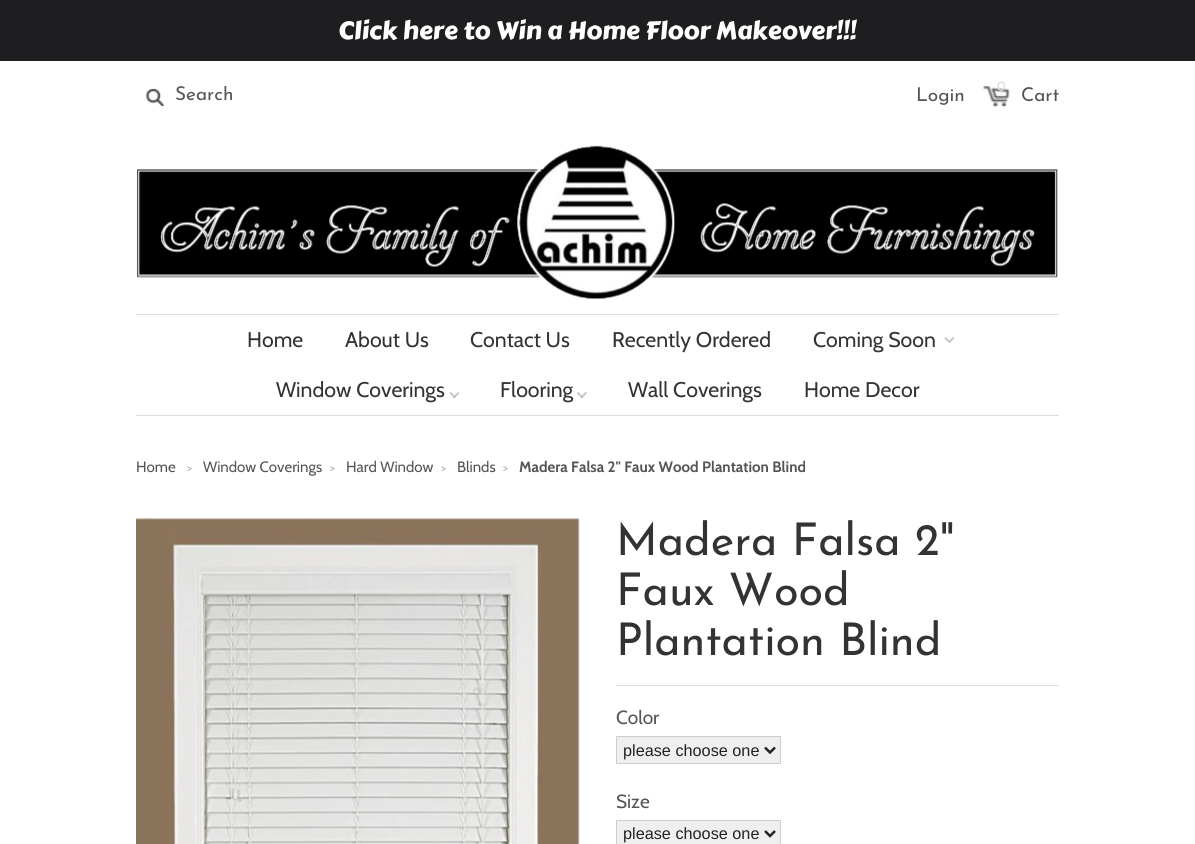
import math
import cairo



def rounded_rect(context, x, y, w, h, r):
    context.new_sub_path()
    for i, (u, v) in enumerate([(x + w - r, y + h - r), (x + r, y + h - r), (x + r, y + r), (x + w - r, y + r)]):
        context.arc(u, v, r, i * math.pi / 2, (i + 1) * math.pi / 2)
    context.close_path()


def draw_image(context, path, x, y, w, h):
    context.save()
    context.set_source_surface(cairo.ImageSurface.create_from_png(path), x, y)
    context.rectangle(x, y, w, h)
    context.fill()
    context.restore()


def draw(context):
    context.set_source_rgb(1, 1, 1)
    context.paint()
    context.set_source_rgb(30 / 255, 30 / 255, 32 / 255)
    context.rectangle(0, 0, 1195, 61)
    context.fill()
    draw_image(context, "images/1.png", 146, 88, 18, 19)
    draw_image(context, "images/2.png", 983, 86, 27, 21)
    draw_image(context, "images/3.png", 136, 145, 922, 154)
    context.set_source_rgb(221 / 255, 221 / 255, 221 / 255)
    context.rectangle(136, 314, 923, 1)
    context.fill()
    context.rectangle(136, 415, 923, 1)
    context.fill()
    draw_image(context, "images/4.png", 944, 337, 11, 6)
    draw_image(context, "images/5.png", 449, 392, 11, 6)
    draw_image(context, "images/6.png", 577, 392, 10, 6)
    draw_image(context, "images/7.png", 136, 518, 444, 326)
    context.rectangle(616, 685, 443, 1)
    context.fill()
    context.set_source_rgb(239 / 255, 239 / 255, 239 / 255)
    rounded_rect(context, 616.5, 736.5, 164, 27, 0.5)
    context.fill_preserve()
    context.set_source_rgb(204 / 255, 204 / 255, 204 / 255)
    context.set_line_width(1)
    context.stroke()
    context.new_path()
    context.move_to(765, 747.5)
    context.line_to(770, 752.5)
    context.line_to(775, 747.5)
    context.set_source_rgb(34 / 255, 34 / 255, 34 / 255)
    context.set_line_width(2.5)
    context.stroke()
    context.set_source_rgb(239 / 255, 239 / 255, 239 / 255)
    rounded_rect(context, 616.5, 820.5, 164, 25, 0.5)
    context.fill_preserve()
    context.set_source_rgb(204 / 255, 204 / 255, 204 / 255)
    context.set_line_width(1)
    context.stroke()
    context.new_path()
    context.move_to(765, 831)
    context.line_to(770, 836)
    context.line_to(775, 831)
    context.set_source_rgb(34 / 255, 34 / 255, 34 / 255)
    context.set_line_width(2.5)
    context.stroke()
    context.select_font_face("Carter One")
    context.set_font_size(25)
    context.set_source_rgb(1, 1, 1)
    context.move_to(338, 39)
    context.show_text("Click here to Win a Home Floor Makeover!!!")
    context.save()
    context.rectangle(175, 86, 106, 19)
    context.clip()
    context.select_font_face("Josefin Sans")
    context.set_font_size(19)
    context.set_source_rgb(85 / 255, 85 / 255, 85 / 255)
    context.move_to(175, 100)
    context.show_text("Search")
    context.restore()
    context.select_font_face("Josefin Sans")
    context.set_font_size(19)
    context.set_source_rgb(85 / 255, 85 / 255, 85 / 255)
    context.move_to(916, 101)
    context.show_text("Login")
    context.set_font_size(14)
    context.set_source_rgb(220 / 255, 219 / 255, 220 / 255)
    context.move_to(997, 91)
    context.show_text("0")
    context.set_font_size(19)
    context.set_source_rgb(85 / 255, 85 / 255, 85 / 255)
    context.move_to(1021, 101)
    context.show_text("Cart")
    context.select_font_face("Cabin")
    context.set_font_size(21.25)
    context.set_source_rgb(51 / 255, 51 / 255, 51 / 255)
    context.move_to(247, 347)
    context.show_text("Home")
    context.move_to(345, 347)
    context.show_text("About Us")
    context.move_to(470, 347)
    context.show_text("Contact Us")
    context.move_to(612, 347)
    context.show_text("Recently Ordered")
    context.move_to(813, 347)
    context.show_text("Coming Soon")
    context.move_to(276, 397)
    context.show_text("Window Coverings")
    context.move_to(500, 397)
    context.show_text("Flooring")
    context.move_to(628, 397)
    context.show_text("Wall Coverings")
    context.move_to(804, 397)
    context.show_text("Home Decor")
    context.set_font_size(15)
    context.set_source_rgb(85 / 255, 85 / 255, 85 / 255)
    context.move_to(136, 472)
    context.show_text("Home")
    context.set_font_size(12)
    context.set_source_rgb(170 / 255, 170 / 255, 170 / 255)
    context.move_to(187, 472)
    context.show_text(">")
    context.set_font_size(15)
    context.set_source_rgb(85 / 255, 85 / 255, 85 / 255)
    context.move_to(203, 472)
    context.show_text("Window Coverings")
    context.set_font_size(12)
    context.set_source_rgb(170 / 255, 170 / 255, 170 / 255)
    context.move_to(330, 472)
    context.show_text(">")
    context.set_font_size(15)
    context.set_source_rgb(85 / 255, 85 / 255, 85 / 255)
    context.move_to(346, 472)
    context.show_text("Hard Window")
    context.set_font_size(12)
    context.set_source_rgb(170 / 255, 170 / 255, 170 / 255)
    context.move_to(441, 472)
    context.show_text(">")
    context.set_font_size(15)
    context.set_source_rgb(85 / 255, 85 / 255, 85 / 255)
    context.move_to(457, 472)
    context.show_text("Blinds")
    context.set_font_size(12)
    context.set_source_rgb(170 / 255, 170 / 255, 170 / 255)
    context.move_to(503, 472)
    context.show_text(">")
    context.select_font_face("Cabin", cairo.FontSlant.NORMAL, cairo.FontWeight.BOLD)
    context.set_font_size(15)
    context.set_source_rgb(85 / 255, 85 / 255, 85 / 255)
    context.move_to(519, 472)
    context.show_text("Madera Falsa 2\" Faux Wood Plantation Blind")
    context.select_font_face("Josefin Sans")
    context.set_font_size(45)
    context.set_source_rgb(51 / 255, 51 / 255, 51 / 255)
    context.move_to(616, 555)
    context.show_text("Madera Falsa 2\"")
    context.move_to(616, 605)
    context.show_text("Faux Wood")
    context.move_to(616, 655)
    context.show_text("Plantation Blind")
    context.select_font_face("Cabin")
    context.set_font_size(19)
    context.set_source_rgb(85 / 255, 85 / 255, 85 / 255)
    context.move_to(616, 724)
    context.show_text("Color")
    context.select_font_face("Liberation Sans")
    context.set_font_size(16.25)
    context.set_source_rgb(34 / 255, 34 / 255, 34 / 255)
    context.move_to(623, 756)
    context.show_text("please choose one")
    context.select_font_face("Cabin")
    context.set_font_size(19)
    context.set_source_rgb(85 / 255, 85 / 255, 85 / 255)
    context.move_to(616, 808)
    context.show_text("Size")
    context.select_font_face("Liberation Sans")
    context.set_font_size(16.25)
    context.set_source_rgb(34 / 255, 34 / 255, 34 / 255)
    context.move_to(623, 839)
    context.show_text("please choose one")


surface = cairo.ImageSurface(cairo.Format.RGB24, 1195, 844)
context = cairo.Context(surface)
options = cairo.FontOptions()
options.set_hint_metrics(cairo.HintMetrics.OFF)
options.set_hint_style(cairo.HintStyle.NONE)
context.set_font_options(options)
context.set_miter_limit(4)
draw(context)
surface.write_to_png("out.png")
